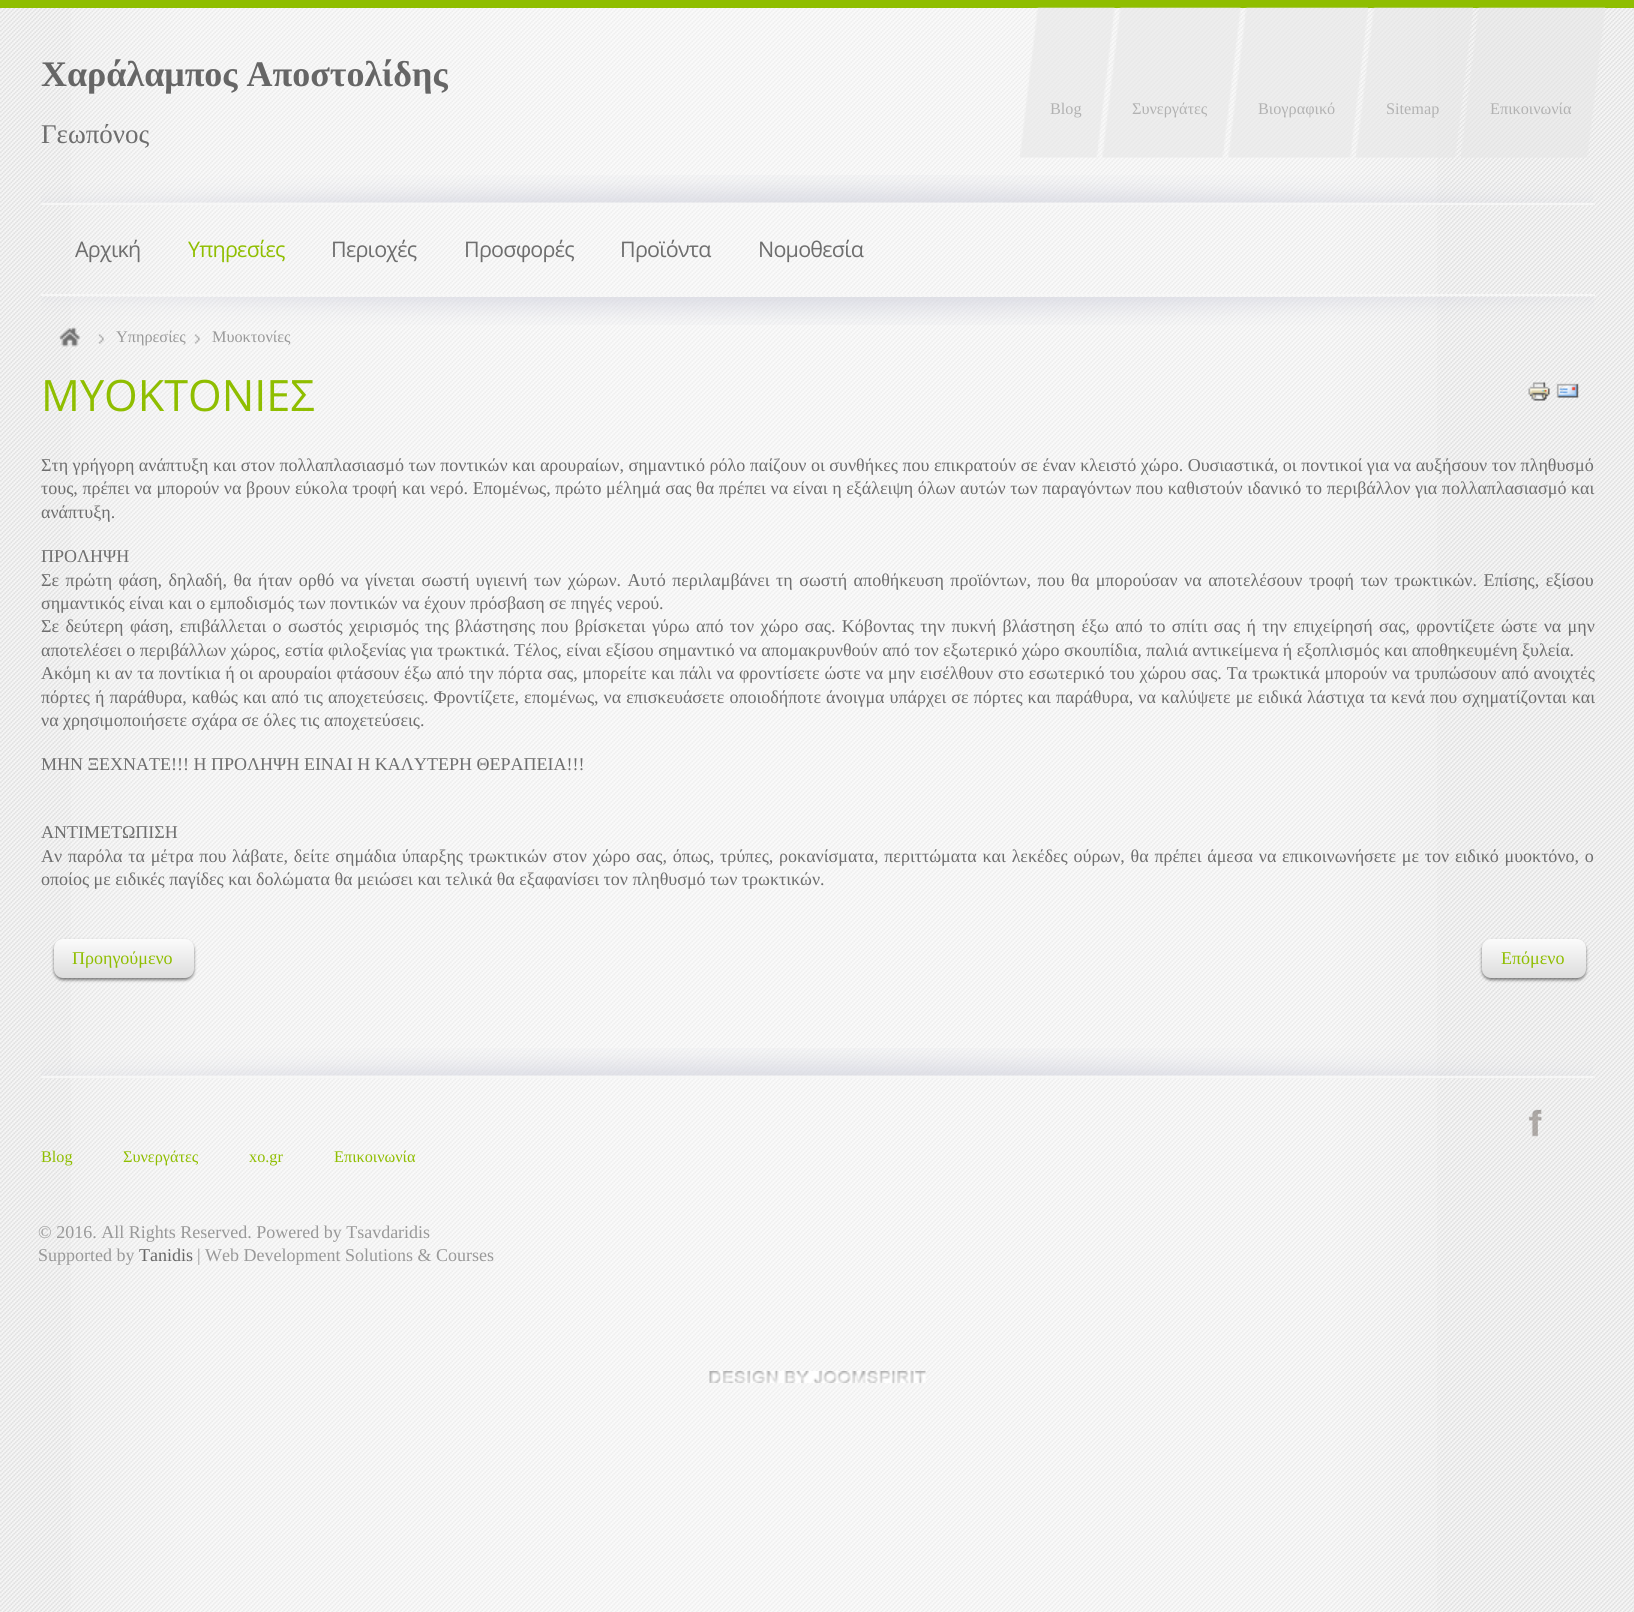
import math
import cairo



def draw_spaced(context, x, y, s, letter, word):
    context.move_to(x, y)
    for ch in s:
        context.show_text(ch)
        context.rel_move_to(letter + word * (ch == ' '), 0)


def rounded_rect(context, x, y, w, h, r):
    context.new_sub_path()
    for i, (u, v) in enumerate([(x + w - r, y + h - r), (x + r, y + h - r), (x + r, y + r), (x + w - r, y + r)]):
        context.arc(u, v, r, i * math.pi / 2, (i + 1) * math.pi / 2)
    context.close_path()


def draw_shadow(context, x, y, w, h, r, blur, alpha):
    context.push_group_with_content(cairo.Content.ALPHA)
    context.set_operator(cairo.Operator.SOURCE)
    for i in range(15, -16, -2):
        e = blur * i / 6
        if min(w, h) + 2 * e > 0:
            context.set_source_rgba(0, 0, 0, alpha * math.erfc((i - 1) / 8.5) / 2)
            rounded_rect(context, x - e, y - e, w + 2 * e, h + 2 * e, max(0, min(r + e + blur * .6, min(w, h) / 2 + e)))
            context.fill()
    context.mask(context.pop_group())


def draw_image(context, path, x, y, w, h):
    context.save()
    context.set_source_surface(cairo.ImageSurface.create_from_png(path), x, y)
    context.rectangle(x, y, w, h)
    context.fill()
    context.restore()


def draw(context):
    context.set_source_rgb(247 / 255, 247 / 255, 247 / 255)
    context.paint()
    draw_image(context, "images/1.png", 0, 8, 1634, 1604)
    draw_image(context, "images/2.png", 71, 8, 1366, 1604)
    context.set_source_rgb(143 / 255, 190 / 255, 0)
    context.rectangle(0, 0, 1634, 8)
    context.fill()
    draw_image(context, "images/3.png", 41, 175, 1552, 28)
    context.set_source_rgb(246 / 255, 246 / 255, 246 / 255)
    context.rectangle(41, 203, 1554, 2)
    context.fill()
    draw_image(context, "images/4.png", 1020, 7, 75, 151)
    draw_image(context, "images/5.png", 1095, 7, 20, 151)
    draw_image(context, "images/6.png", 1102, 7, 119, 151)
    draw_image(context, "images/7.png", 1221, 7, 20, 151)
    draw_image(context, "images/8.png", 1228, 7, 121, 151)
    draw_image(context, "images/9.png", 1348, 7, 20, 150)
    draw_image(context, "images/10.png", 1356, 7, 98, 151)
    draw_image(context, "images/11.png", 1453, 7, 20, 149)
    draw_image(context, "images/12.png", 1461, 7, 125, 151)
    draw_image(context, "images/13.png", 1585, 7, 20, 151)
    draw_image(context, "images/14.png", 41, 297, 1553, 28)
    context.rectangle(41, 294, 1554, 2)
    context.fill()
    draw_image(context, "images/15.png", 41, 1048, 1552, 28)
    draw_image(context, "images/16.png", 59, 327, 22, 20)
    draw_image(context, "images/17.png", 98, 334, 6, 10)
    draw_image(context, "images/18.png", 194, 334, 6, 10)
    draw_image(context, "images/19.png", 1528, 382, 22, 19)
    draw_image(context, "images/20.png", 1556, 383, 23, 15)
    context.set_source_rgb(0, 0, 0)
    draw_shadow(context, 54, 941, 140, 39, 9, 1.5, 0.5)
    gradient = cairo.LinearGradient(54, 939, 54, 978)
    gradient.add_color_stop_rgba(0, 251 / 255, 251 / 255, 251 / 255, 1)
    gradient.add_color_stop_rgba(1, 221 / 255, 221 / 255, 221 / 255, 1)
    context.set_source(gradient)
    rounded_rect(context, 54, 939, 140, 39, 9)
    context.fill()
    context.set_source_rgb(0, 0, 0)
    draw_shadow(context, 1482, 941, 104, 39, 9, 1.5, 0.5)
    gradient = cairo.LinearGradient(1482, 939, 1482, 978)
    gradient.add_color_stop_rgba(0, 251 / 255, 251 / 255, 251 / 255, 1)
    gradient.add_color_stop_rgba(1, 221 / 255, 221 / 255, 221 / 255, 1)
    context.set_source(gradient)
    rounded_rect(context, 1482, 939, 104, 39, 9)
    context.fill()
    context.set_source_rgb(246 / 255, 246 / 255, 246 / 255)
    context.rectangle(41, 1076, 1554, 2)
    context.fill()
    draw_image(context, "images/21.png", 1528, 1109, 14, 28)
    draw_image(context, "images/22.png", 709, 1371, 217, 12)
    context.select_font_face("Liberation Serif", cairo.FontSlant.NORMAL, cairo.FontWeight.BOLD)
    context.set_font_size(36)
    context.set_source_rgb(102 / 255, 102 / 255, 102 / 255)
    context.move_to(41, 86)
    context.show_text("Χαράλαμπος Αποστολίδης")
    context.select_font_face("Liberation Serif")
    context.set_font_size(27)
    context.set_source_rgb(110 / 255, 110 / 255, 110 / 255)
    context.move_to(41, 143)
    context.show_text("Γεωπόνος")
    context.set_font_size(16.25)
    context.set_source_rgb(178 / 255, 178 / 255, 178 / 255)
    context.move_to(1050, 114)
    context.show_text("Blog")
    context.move_to(1132, 114)
    context.show_text("Συνεργάτες")
    context.move_to(1258, 114)
    context.show_text("Βιογραφικό")
    context.move_to(1386, 114)
    context.show_text("Sitemap")
    context.move_to(1490, 114)
    context.show_text("Επικοινωνία")
    context.select_font_face("Open Sans")
    context.set_font_size(21.5)
    context.set_source_rgb(110 / 255, 110 / 255, 110 / 255)
    draw_spaced(context, 75, 257, "Αρχική", -0.75, 0)
    context.set_source_rgb(143 / 255, 190 / 255, 0)
    draw_spaced(context, 188, 257, "Υπηρεσίες", -0.75, 0)
    context.set_source_rgb(110 / 255, 110 / 255, 110 / 255)
    draw_spaced(context, 331, 257, "Περιοχές", -0.75, 0)
    draw_spaced(context, 464, 257, "Προσφορές", -0.75, 0)
    draw_spaced(context, 620, 257, "Προϊόντα", -0.75, 0)
    draw_spaced(context, 758, 257, "Νομοθεσία", -0.75, 0)
    context.select_font_face("Liberation Serif")
    context.set_font_size(16.25)
    context.set_source_rgb(153 / 255, 153 / 255, 153 / 255)
    context.move_to(116, 342)
    context.show_text("Υπηρεσίες")
    context.move_to(212, 342)
    context.show_text("Μυοκτονίες")
    context.select_font_face("Open Sans")
    context.set_font_size(43.25)
    context.set_source_rgb(143 / 255, 190 / 255, 0)
    context.move_to(41, 411)
    context.show_text("ΜΥΟΚΤΟΝΙΕΣ")
    context.select_font_face("Liberation Serif")
    context.set_font_size(18)
    context.set_source_rgb(110 / 255, 110 / 255, 110 / 255)
    context.move_to(41, 471)
    context.show_text("Στη γρήγορη ανάπτυξη και στον πολλαπλασιασμό των ποντικών και αρουραίων, σημαντικό ρόλο παίζουν οι συνθήκες που επικρατούν σε έναν κλειστό χώρο. Ουσιαστικά, οι ποντικοί για να αυξήσουν τον πληθυσμό")
    draw_spaced(context, 41, 494, "τους, πρέπει να μπορούν να βρουν εύκολα τροφή και νερό. Επομένως, πρώτο μέλημά σας θα πρέπει να είναι η εξάλειψη όλων αυτών των παραγόντων που καθιστούν ιδανικό το περιβάλλον για πολλαπλασιασμό και", 0, 0.15)
    context.move_to(41, 518)
    context.show_text("ανάπτυξη.")
    context.move_to(41, 562)
    context.show_text("ΠΡΟΛΗΨΗ")
    draw_spaced(context, 41, 586, "Σε πρώτη φάση, δηλαδή, θα ήταν ορθό να γίνεται σωστή υγιεινή των χώρων. Αυτό περιλαμβάνει τη σωστή αποθήκευση προϊόντων, που θα μπορούσαν να αποτελέσουν τροφή των τρωκτικών. Επίσης, εξίσου", 0, 2)
    context.move_to(41, 609)
    context.show_text("σημαντικός είναι και ο εμποδισμός των ποντικών να έχουν πρόσβαση σε πηγές νερού.")
    draw_spaced(context, 41, 632, "Σε δεύτερη φάση, επιβάλλεται ο σωστός χειρισμός της βλάστησης που βρίσκεται γύρω από τον χώρο σας. Κόβοντας την πυκνή βλάστηση έξω από το σπίτι σας ή την επιχείρησή σας, φροντίζετε ώστε να μην", 0, 1.85)
    context.move_to(41, 656)
    context.show_text("αποτελέσει ο περιβάλλων χώρος, εστία φιλοξενίας για τρωκτικά. Τέλος, είναι εξίσου σημαντικό να απομακρυνθούν από τον εξωτερικό χώρο σκουπίδια, παλιά αντικείμενα ή εξοπλισμός και αποθηκευμένη ξυλεία.")
    draw_spaced(context, 41, 679, "Ακόμη κι αν τα ποντίκια ή οι αρουραίοι φτάσουν έξω από την πόρτα σας, μπορείτε και πάλι να φροντίσετε ώστε να μην εισέλθουν στο εσωτερικό του χώρου σας. Τα τρωκτικά μπορούν να τρυπώσουν από ανοιχτές", 0, 0.35)
    draw_spaced(context, 41, 703, "πόρτες ή παράθυρα, καθώς και από τις αποχετεύσεις. Φροντίζετε, επομένως, να επισκευάσετε οποιοδήποτε άνοιγμα υπάρχει σε πόρτες και παράθυρα, να καλύψετε με ειδικά λάστιχα τα κενά που σχηματίζονται και", 0, 0.5)
    context.move_to(41, 726)
    context.show_text("να χρησιμοποιήσετε σχάρα σε όλες τις αποχετεύσεις.")
    context.move_to(41, 770)
    context.show_text("ΜΗΝ ΞΕΧΝΑΤΕ!!! Η ΠΡΟΛΗΨΗ ΕΙΝΑΙ Η ΚΑΛΥΤΕΡΗ ΘΕΡΑΠΕΙΑ!!!")
    context.move_to(41, 838)
    context.show_text("ΑΝΤΙΜΕΤΩΠΙΣΗ")
    draw_spaced(context, 41, 862, "Αν παρόλα τα μέτρα που λάβατε, δείτε σημάδια ύπαρξης τρωκτικών στον χώρο σας, όπως, τρύπες, ροκανίσματα, περιττώματα και λεκέδες ούρων, θα πρέπει άμεσα να επικοινωνήσετε με τον ειδικό μυοκτόνο, ο", 0, 1.25)
    context.move_to(41, 885)
    context.show_text("οποίος με ειδικές παγίδες και δολώματα θα μειώσει και τελικά θα εξαφανίσει τον πληθυσμό των τρωκτικών.")
    context.set_source_rgb(143 / 255, 190 / 255, 0)
    context.move_to(72, 964)
    context.show_text("Προηγούμενο")
    context.move_to(1501, 964)
    context.show_text("Επόμενο")
    context.set_font_size(16.25)
    context.move_to(41, 1162)
    context.show_text("Blog")
    context.move_to(123, 1162)
    context.show_text("Συνεργάτες")
    context.move_to(249, 1162)
    context.show_text("xo.gr")
    context.move_to(334, 1162)
    context.show_text("Επικοινωνία")
    context.set_font_size(18)
    context.set_source_rgb(153 / 255, 153 / 255, 153 / 255)
    context.move_to(38, 1238)
    context.show_text("© 2016. All Rights Reserved. Powered by Tsavdaridis")
    context.move_to(38, 1261)
    context.show_text("Supported by")
    context.set_source_rgb(102 / 255, 102 / 255, 102 / 255)
    context.move_to(139, 1261)
    context.show_text("Tanidis")
    context.set_source_rgb(153 / 255, 153 / 255, 153 / 255)
    context.move_to(197, 1261)
    context.show_text("| Web Development Solutions & Courses")


surface = cairo.ImageSurface(cairo.Format.RGB24, 1634, 1612)
context = cairo.Context(surface)
options = cairo.FontOptions()
options.set_hint_metrics(cairo.HintMetrics.OFF)
options.set_hint_style(cairo.HintStyle.NONE)
context.set_font_options(options)
context.set_miter_limit(4)
draw(context)
surface.write_to_png("out.png")
